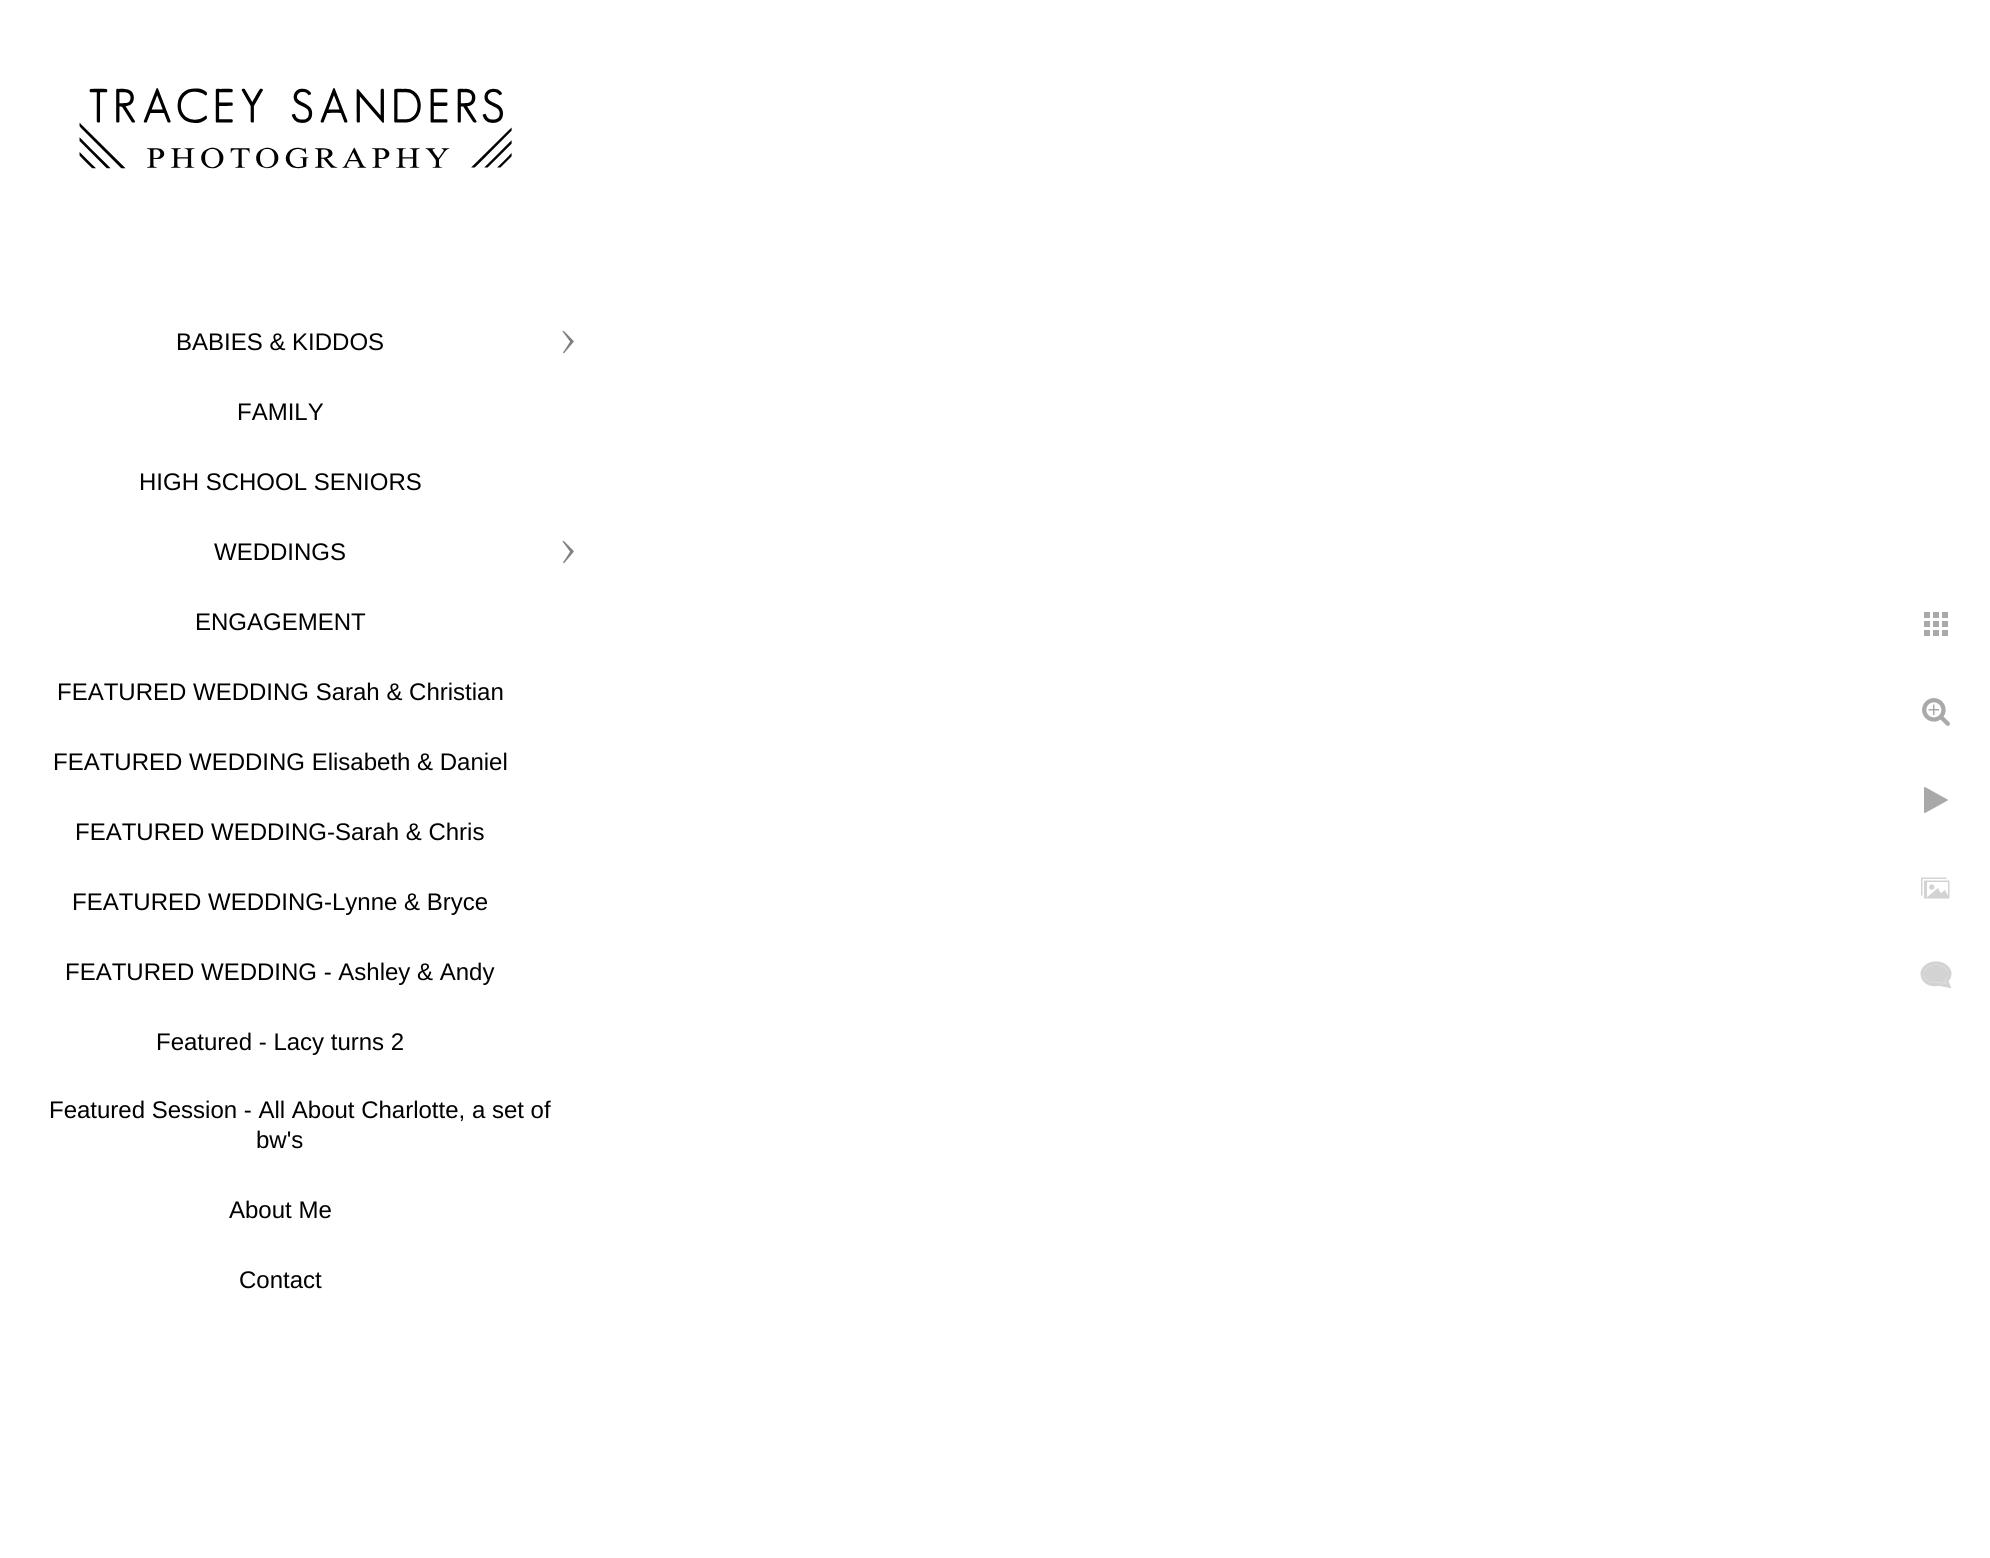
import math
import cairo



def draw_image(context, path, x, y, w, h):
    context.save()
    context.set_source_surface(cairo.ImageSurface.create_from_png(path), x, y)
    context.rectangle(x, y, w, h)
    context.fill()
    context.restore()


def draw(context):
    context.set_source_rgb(1, 1, 1)
    context.paint()
    draw_image(context, "images/1.png", 79, 88, 433, 81)
    draw_image(context, "images/2.png", 562, 330, 12, 24)
    draw_image(context, "images/2.png", 562, 540, 12, 24)
    draw_image(context, "images/3.png", 1924, 612, 24, 24)
    draw_image(context, "images/4.png", 1922, 698, 28, 28)
    draw_image(context, "images/5.png", 1924, 787, 24, 26)
    draw_image(context, "images/6.png", 1921, 877, 29, 22)
    draw_image(context, "images/7.png", 1920, 961, 32, 28)
    context.select_font_face("Liberation Sans")
    context.set_font_size(24)
    context.set_source_rgb(0, 0, 0)
    context.move_to(176, 350)
    context.show_text("BABIES & KIDDOS")
    context.move_to(237, 420)
    context.show_text("FAMILY")
    context.move_to(139, 490)
    context.show_text("HIGH SCHOOL SENIORS")
    context.move_to(214, 560)
    context.show_text("WEDDINGS")
    context.move_to(195, 630)
    context.show_text("ENGAGEMENT")
    context.move_to(57, 700)
    context.show_text("FEATURED WEDDING Sarah & Christian")
    context.move_to(53, 770)
    context.show_text("FEATURED WEDDING Elisabeth & Daniel")
    context.move_to(75, 840)
    context.show_text("FEATURED WEDDING-Sarah & Chris")
    context.move_to(72, 910)
    context.show_text("FEATURED WEDDING-Lynne & Bryce")
    context.move_to(65, 980)
    context.show_text("FEATURED WEDDING - Ashley & Andy")
    context.move_to(156, 1050)
    context.show_text("Featured - Lacy turns 2")
    context.move_to(49, 1118)
    context.show_text("Featured Session - All About Charlotte, a set of")
    context.move_to(256, 1148)
    context.show_text("bw's")
    context.move_to(229, 1218)
    context.show_text("About Me")
    context.move_to(239, 1288)
    context.show_text("Contact")


surface = cairo.ImageSurface(cairo.Format.RGB24, 1990, 1558)
context = cairo.Context(surface)
options = cairo.FontOptions()
options.set_hint_metrics(cairo.HintMetrics.OFF)
options.set_hint_style(cairo.HintStyle.NONE)
context.set_font_options(options)
context.set_miter_limit(4)
draw(context)
surface.write_to_png("out.png")
